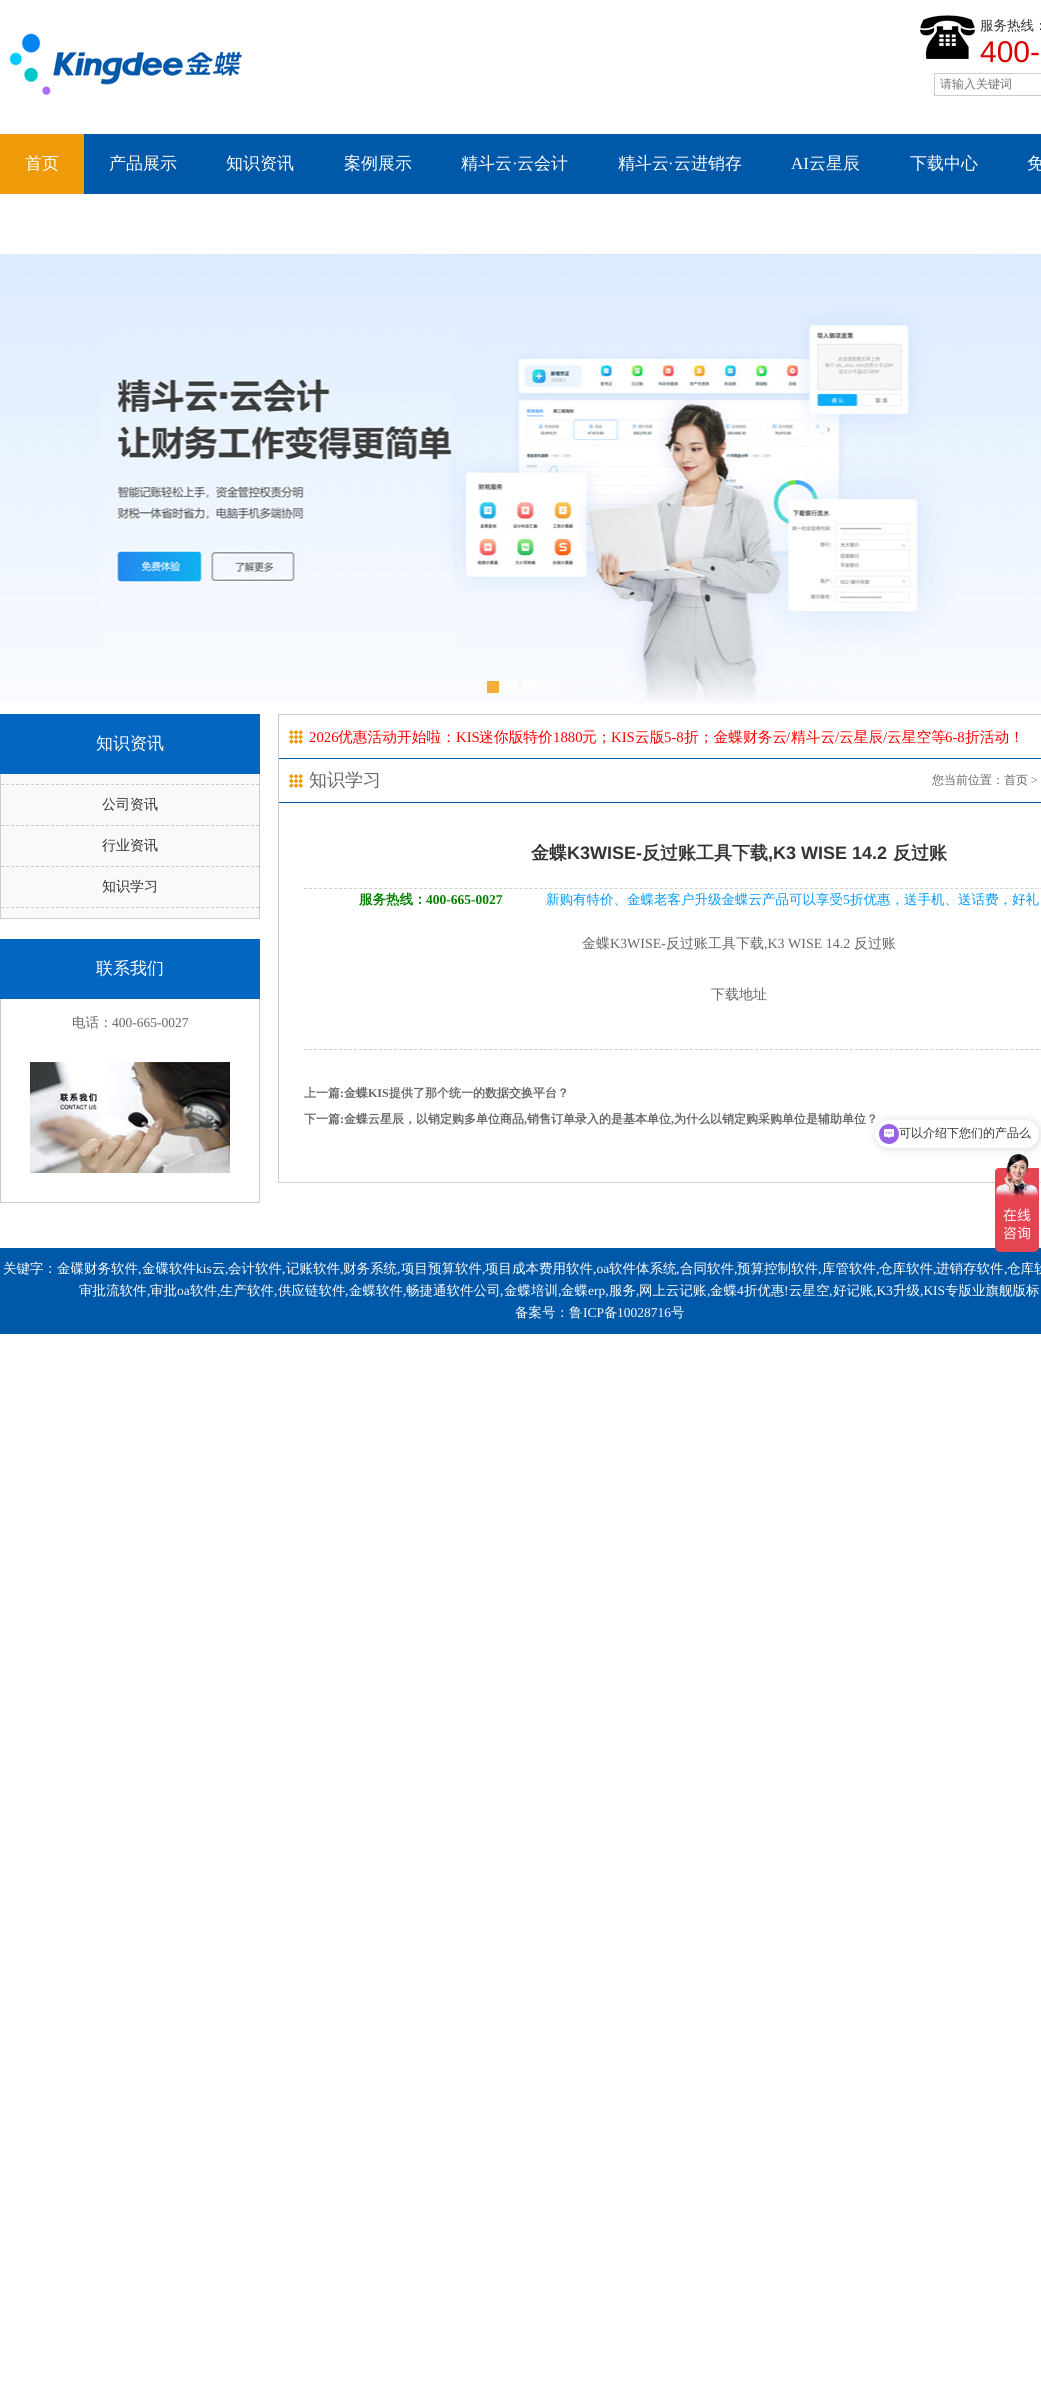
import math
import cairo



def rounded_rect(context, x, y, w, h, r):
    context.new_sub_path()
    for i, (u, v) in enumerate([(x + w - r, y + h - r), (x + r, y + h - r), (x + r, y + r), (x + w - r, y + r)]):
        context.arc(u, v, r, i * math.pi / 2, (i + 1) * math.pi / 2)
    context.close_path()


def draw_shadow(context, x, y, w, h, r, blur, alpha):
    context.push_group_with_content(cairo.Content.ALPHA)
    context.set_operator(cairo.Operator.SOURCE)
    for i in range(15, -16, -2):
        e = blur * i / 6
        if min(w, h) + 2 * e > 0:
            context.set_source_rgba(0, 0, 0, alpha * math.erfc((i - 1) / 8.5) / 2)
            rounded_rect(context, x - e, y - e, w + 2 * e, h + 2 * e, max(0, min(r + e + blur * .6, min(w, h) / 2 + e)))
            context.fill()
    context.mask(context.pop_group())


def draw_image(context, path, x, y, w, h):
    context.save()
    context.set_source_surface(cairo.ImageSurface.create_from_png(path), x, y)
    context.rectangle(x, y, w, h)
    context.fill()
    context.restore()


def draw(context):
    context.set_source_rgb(1, 1, 1)
    context.paint()
    draw_image(context, "images/1.png", 9, 33, 233, 63)
    draw_image(context, "images/2.png", 920, 15, 55, 44)
    context.set_source_rgb(204 / 255, 204 / 255, 204 / 255)
    context.rectangle(934, 73, 107, 1)
    context.fill()
    context.rectangle(934, 95, 107, 1)
    context.fill()
    context.rectangle(934, 73, 1, 23)
    context.fill()
    context.set_source_rgb(0, 88 / 255, 169 / 255)
    context.rectangle(84, 134, 957, 60)
    context.fill()
    context.set_source_rgb(239 / 255, 155 / 255, 9 / 255)
    context.rectangle(0, 134, 84, 60)
    context.fill()
    draw_image(context, "images/3.png", 0, 254, 1041, 449)
    context.set_source_rgb(241 / 255, 174 / 255, 58 / 255)
    context.rectangle(487, 681, 12, 12)
    context.fill()
    context.set_source_rgb(254 / 255, 254 / 255, 1)
    context.rectangle(505, 681, 12, 12)
    context.fill()
    context.rectangle(523, 681, 12, 12)
    context.fill()
    context.set_source_rgb(3 / 255, 102 / 255, 193 / 255)
    context.rectangle(0, 714, 260, 60)
    context.fill()
    context.set_source_rgb(249 / 255, 249 / 255, 249 / 255)
    context.rectangle(1, 774, 258, 144)
    context.fill()
    context.set_source_rgb(204 / 255, 204 / 255, 204 / 255)
    context.rectangle(259, 774, 1, 145)
    context.fill()
    context.rectangle(0, 918, 260, 1)
    context.fill()
    context.rectangle(0, 774, 1, 145)
    context.fill()
    context.new_path()
    context.move_to(1, 907.5)
    context.line_to(259, 907.5)
    context.set_line_width(1)
    context.set_dash([3, 2])
    context.stroke()
    context.new_path()
    context.move_to(1, 784.5)
    context.line_to(259, 784.5)
    context.stroke()
    context.new_path()
    context.move_to(1, 825.5)
    context.line_to(259, 825.5)
    context.stroke()
    context.new_path()
    context.move_to(1, 866.5)
    context.line_to(259, 866.5)
    context.stroke()
    context.set_source_rgb(3 / 255, 102 / 255, 193 / 255)
    context.rectangle(0, 939, 260, 60)
    context.fill()
    context.set_source_rgb(204 / 255, 204 / 255, 204 / 255)
    context.rectangle(259, 999, 1, 204)
    context.fill()
    context.rectangle(0, 1202, 260, 1)
    context.fill()
    context.rectangle(0, 999, 1, 204)
    context.fill()
    draw_image(context, "images/4.png", 30, 1062, 200, 111)
    context.rectangle(278.5, 714.5, 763, 468)
    context.set_dash([])
    context.stroke()
    draw_image(context, "images/5.png", 289, 730, 14, 14)
    context.set_source_rgb(0, 88 / 255, 169 / 255)
    context.rectangle(279, 758, 762, 1)
    context.fill()
    draw_image(context, "images/5.png", 289, 774, 14, 14)
    context.rectangle(279, 802, 762, 1)
    context.fill()
    context.new_path()
    context.move_to(304, 888.5)
    context.line_to(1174, 888.5)
    context.set_source_rgb(209 / 255, 208 / 255, 208 / 255)
    context.set_dash([3, 2.01])
    context.stroke()
    context.new_path()
    context.move_to(304, 1049.5)
    context.line_to(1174, 1049.5)
    context.set_source_rgb(204 / 255, 204 / 255, 204 / 255)
    context.stroke()
    context.set_source_rgb(0, 88 / 255, 169 / 255)
    context.rectangle(0, 1248, 1041, 86)
    context.fill()
    context.set_source_rgb(0, 0, 0)
    draw_shadow(context, 875, 1120, 166, 30, 15, 4, 0.12)
    context.set_source_rgb(1, 1, 1)
    rounded_rect(context, 875, 1120, 164, 28, 14)
    context.fill()
    context.set_source_rgb(152 / 255, 97 / 255, 230 / 255)
    context.arc(889, 1134, 10, 0, 2 * math.pi)
    context.fill()
    draw_image(context, "images/6.png", 884, 1129, 10, 9)
    draw_image(context, "images/7.png", 995, 1154, 44, 98)
    context.select_font_face("WenQuanYi Zen Hei Medium")
    context.set_font_size(13.5)
    context.set_source_rgb(51 / 255, 51 / 255, 51 / 255)
    context.move_to(980, 30)
    context.show_text("服务热线：")
    context.select_font_face("Liberation Sans")
    context.set_font_size(30)
    context.set_source_rgb(219 / 255, 0, 0)
    context.move_to(980, 62)
    context.show_text("400-")
    context.select_font_face("WenQuanYi Zen Hei Medium")
    context.set_font_size(12)
    context.set_source_rgb(117 / 255, 117 / 255, 117 / 255)
    context.move_to(940, 88)
    context.show_text("请输入关键词")
    context.set_font_size(17)
    context.set_source_rgb(1, 1, 1)
    context.move_to(25, 169)
    context.show_text("首页")
    context.move_to(109, 169)
    context.show_text("产品展示")
    context.move_to(226, 169)
    context.show_text("知识资讯")
    context.move_to(344, 169)
    context.show_text("案例展示")
    context.move_to(461, 169)
    context.show_text("精斗云")
    context.select_font_face("Liberation Serif")
    context.move_to(512, 169)
    context.show_text("·")
    context.select_font_face("WenQuanYi Zen Hei Medium")
    context.move_to(517, 169)
    context.show_text("云会计")
    context.move_to(618, 169)
    context.show_text("精斗云")
    context.select_font_face("Liberation Serif")
    context.move_to(668, 169)
    context.show_text("·")
    context.select_font_face("WenQuanYi Zen Hei Medium")
    context.move_to(674, 169)
    context.show_text("云进销存")
    context.select_font_face("Liberation Serif")
    context.move_to(791, 169)
    context.show_text("AI")
    context.select_font_face("WenQuanYi Zen Hei Medium")
    context.move_to(809, 169)
    context.show_text("云星辰")
    context.move_to(910, 169)
    context.show_text("下载中心")
    context.move_to(1027, 169)
    context.show_text("免")
    context.move_to(96, 749)
    context.show_text("知识资讯")
    context.set_font_size(14)
    context.set_source_rgb(51 / 255, 51 / 255, 51 / 255)
    context.move_to(102, 809)
    context.show_text("公司资讯")
    context.move_to(102, 850)
    context.show_text("行业资讯")
    context.move_to(102, 891)
    context.show_text("知识学习")
    context.set_font_size(17)
    context.set_source_rgb(1, 1, 1)
    context.move_to(96, 974)
    context.show_text("联系我们")
    context.set_font_size(13.5)
    context.set_source_rgb(102 / 255, 102 / 255, 102 / 255)
    context.move_to(72, 1027)
    context.show_text("电话：")
    context.select_font_face("Liberation Serif")
    context.move_to(112, 1027)
    context.show_text("400-665-0027")
    context.set_font_size(14.75)
    context.set_source_rgb(1, 0, 0)
    context.move_to(309, 742)
    context.show_text("2026")
    context.select_font_face("WenQuanYi Zen Hei Medium")
    context.move_to(338, 742)
    context.show_text("优惠活动开始啦：")
    context.select_font_face("Liberation Serif")
    context.move_to(456, 742)
    context.show_text("KIS")
    context.select_font_face("WenQuanYi Zen Hei Medium")
    context.move_to(479, 742)
    context.show_text("迷你版特价")
    context.select_font_face("Liberation Serif")
    context.move_to(553, 742)
    context.show_text("1880")
    context.select_font_face("WenQuanYi Zen Hei Medium")
    context.move_to(582, 742)
    context.show_text("元；")
    context.select_font_face("Liberation Serif")
    context.move_to(611, 742)
    context.show_text("KIS")
    context.select_font_face("WenQuanYi Zen Hei Medium")
    context.move_to(635, 742)
    context.show_text("云版")
    context.select_font_face("Liberation Serif")
    context.move_to(664, 742)
    context.show_text("5-8")
    context.select_font_face("WenQuanYi Zen Hei Medium")
    context.move_to(684, 742)
    context.show_text("折；金蝶财务云")
    context.select_font_face("Liberation Serif")
    context.move_to(786, 742)
    context.show_text("/")
    context.select_font_face("WenQuanYi Zen Hei Medium")
    context.move_to(791, 742)
    context.show_text("精斗云")
    context.select_font_face("Liberation Serif")
    context.move_to(835, 742)
    context.show_text("/")
    context.select_font_face("WenQuanYi Zen Hei Medium")
    context.move_to(839, 742)
    context.show_text("云星辰")
    context.select_font_face("Liberation Serif")
    context.move_to(883, 742)
    context.show_text("/")
    context.select_font_face("WenQuanYi Zen Hei Medium")
    context.move_to(887, 742)
    context.show_text("云星空等")
    context.select_font_face("Liberation Serif")
    context.move_to(945, 742)
    context.show_text("6-8")
    context.select_font_face("WenQuanYi Zen Hei Medium")
    context.move_to(965, 742)
    context.show_text("折活动！")
    context.set_font_size(18)
    context.set_source_rgb(102 / 255, 102 / 255, 102 / 255)
    context.move_to(309, 786)
    context.show_text("知识学习")
    context.set_font_size(12)
    context.move_to(932, 784)
    context.show_text("您当前位置：首页")
    context.select_font_face("Liberation Serif")
    context.move_to(1031, 784)
    context.show_text(">")
    context.select_font_face("WenQuanYi Zen Hei", cairo.FontSlant.NORMAL, cairo.FontWeight.BOLD)
    context.set_font_size(18)
    context.set_source_rgb(51 / 255, 51 / 255, 51 / 255)
    context.move_to(531, 859)
    context.show_text("金蝶")
    context.select_font_face("Liberation Sans", cairo.FontSlant.NORMAL, cairo.FontWeight.BOLD)
    context.move_to(567, 859)
    context.show_text("K3WISE-")
    context.select_font_face("WenQuanYi Zen Hei", cairo.FontSlant.NORMAL, cairo.FontWeight.BOLD)
    context.move_to(642, 859)
    context.show_text("反过账工具下载")
    context.select_font_face("Liberation Sans", cairo.FontSlant.NORMAL, cairo.FontWeight.BOLD)
    context.move_to(768, 859)
    context.show_text(",K3 WISE 14.2")
    context.select_font_face("WenQuanYi Zen Hei", cairo.FontSlant.NORMAL, cairo.FontWeight.BOLD)
    context.move_to(893, 859)
    context.show_text("反过账")
    context.set_font_size(13.5)
    context.set_source_rgb(0, 128 / 255, 0)
    context.move_to(359, 904)
    context.show_text("服务热线：")
    context.select_font_face("Liberation Serif", cairo.FontSlant.NORMAL, cairo.FontWeight.BOLD)
    context.move_to(426, 904)
    context.show_text("400-665-0027")
    context.select_font_face("WenQuanYi Zen Hei Medium")
    context.set_source_rgb(0, 153 / 255, 1)
    context.move_to(546, 904)
    context.show_text("新购有特价、金蝶老客户升级金蝶云产品可以享受")
    context.select_font_face("Liberation Serif")
    context.move_to(843, 904)
    context.show_text("5")
    context.select_font_face("WenQuanYi Zen Hei Medium")
    context.move_to(850, 904)
    context.show_text("折优惠，送手机、送话费，好礼")
    context.set_font_size(14)
    context.set_source_rgb(102 / 255, 102 / 255, 102 / 255)
    context.move_to(582, 948)
    context.show_text("金蝶")
    context.select_font_face("Liberation Serif")
    context.move_to(610, 948)
    context.show_text("K3WISE-")
    context.select_font_face("WenQuanYi Zen Hei Medium")
    context.move_to(666, 948)
    context.show_text("反过账工具下载")
    context.select_font_face("Liberation Serif")
    context.move_to(764, 948)
    context.show_text(",K3 WISE 14.2")
    context.select_font_face("WenQuanYi Zen Hei Medium")
    context.move_to(854, 948)
    context.show_text("反过账")
    context.move_to(711, 999)
    context.show_text("下载地址")
    context.select_font_face("WenQuanYi Zen Hei", cairo.FontSlant.NORMAL, cairo.FontWeight.BOLD)
    context.set_font_size(12)
    context.move_to(304, 1097)
    context.show_text("上一篇")
    context.select_font_face("Liberation Serif", cairo.FontSlant.NORMAL, cairo.FontWeight.BOLD)
    context.move_to(340, 1097)
    context.show_text(":")
    context.select_font_face("WenQuanYi Zen Hei", cairo.FontSlant.NORMAL, cairo.FontWeight.BOLD)
    context.move_to(344, 1097)
    context.show_text("金蝶")
    context.select_font_face("Liberation Serif", cairo.FontSlant.NORMAL, cairo.FontWeight.BOLD)
    context.move_to(368, 1097)
    context.show_text("KIS")
    context.select_font_face("WenQuanYi Zen Hei", cairo.FontSlant.NORMAL, cairo.FontWeight.BOLD)
    context.move_to(389, 1097)
    context.show_text("提供了那个统一的数据交换平台？")
    context.move_to(304, 1123)
    context.show_text("下一篇")
    context.select_font_face("Liberation Serif", cairo.FontSlant.NORMAL, cairo.FontWeight.BOLD)
    context.move_to(340, 1123)
    context.show_text(":")
    context.select_font_face("WenQuanYi Zen Hei", cairo.FontSlant.NORMAL, cairo.FontWeight.BOLD)
    context.move_to(344, 1123)
    context.show_text("金蝶云星辰，以销定购多单位商品")
    context.select_font_face("Liberation Serif", cairo.FontSlant.NORMAL, cairo.FontWeight.BOLD)
    context.move_to(524, 1123)
    context.show_text(",")
    context.select_font_face("WenQuanYi Zen Hei", cairo.FontSlant.NORMAL, cairo.FontWeight.BOLD)
    context.move_to(527, 1123)
    context.show_text("销售订单录入的是基本单位")
    context.select_font_face("Liberation Serif", cairo.FontSlant.NORMAL, cairo.FontWeight.BOLD)
    context.move_to(671, 1123)
    context.show_text(",")
    context.select_font_face("WenQuanYi Zen Hei", cairo.FontSlant.NORMAL, cairo.FontWeight.BOLD)
    context.move_to(674, 1123)
    context.show_text("为什么以销定购采购单位是辅助单位？")
    context.select_font_face("WenQuanYi Zen Hei Medium")
    context.set_font_size(13.5)
    context.set_source_rgb(1, 1, 1)
    context.move_to(3, 1273)
    context.show_text("关键字：金碟财务软件")
    context.select_font_face("Liberation Serif")
    context.move_to(138, 1273)
    context.show_text(",")
    context.select_font_face("WenQuanYi Zen Hei Medium")
    context.move_to(142, 1273)
    context.show_text("金碟软件")
    context.select_font_face("Liberation Serif")
    context.move_to(196, 1273)
    context.show_text("kis")
    context.select_font_face("WenQuanYi Zen Hei Medium")
    context.move_to(212, 1273)
    context.show_text("云")
    context.select_font_face("Liberation Serif")
    context.move_to(225, 1273)
    context.show_text(",")
    context.select_font_face("WenQuanYi Zen Hei Medium")
    context.move_to(228, 1273)
    context.show_text("会计软件")
    context.select_font_face("Liberation Serif")
    context.move_to(282, 1273)
    context.show_text(",")
    context.select_font_face("WenQuanYi Zen Hei Medium")
    context.move_to(286, 1273)
    context.show_text("记账软件")
    context.select_font_face("Liberation Serif")
    context.move_to(340, 1273)
    context.show_text(",")
    context.select_font_face("WenQuanYi Zen Hei Medium")
    context.move_to(343, 1273)
    context.show_text("财务系统")
    context.select_font_face("Liberation Serif")
    context.move_to(397, 1273)
    context.show_text(",")
    context.select_font_face("WenQuanYi Zen Hei Medium")
    context.move_to(401, 1273)
    context.show_text("项目预算软件")
    context.select_font_face("Liberation Serif")
    context.move_to(482, 1273)
    context.show_text(",")
    context.select_font_face("WenQuanYi Zen Hei Medium")
    context.move_to(485, 1273)
    context.show_text("项目成本费用软件")
    context.select_font_face("Liberation Serif")
    context.move_to(593, 1273)
    context.show_text(",oa")
    context.select_font_face("WenQuanYi Zen Hei Medium")
    context.move_to(609, 1273)
    context.show_text("软件体系统")
    context.select_font_face("Liberation Serif")
    context.move_to(676, 1273)
    context.show_text(",")
    context.select_font_face("WenQuanYi Zen Hei Medium")
    context.move_to(680, 1273)
    context.show_text("合同软件")
    context.select_font_face("Liberation Serif")
    context.move_to(734, 1273)
    context.show_text(",")
    context.select_font_face("WenQuanYi Zen Hei Medium")
    context.move_to(737, 1273)
    context.show_text("预算控制软件")
    context.select_font_face("Liberation Serif")
    context.move_to(818, 1273)
    context.show_text(",")
    context.select_font_face("WenQuanYi Zen Hei Medium")
    context.move_to(822, 1273)
    context.show_text("库管软件")
    context.select_font_face("Liberation Serif")
    context.move_to(876, 1273)
    context.show_text(",")
    context.select_font_face("WenQuanYi Zen Hei Medium")
    context.move_to(879, 1273)
    context.show_text("仓库软件")
    context.select_font_face("Liberation Serif")
    context.move_to(933, 1273)
    context.show_text(",")
    context.select_font_face("WenQuanYi Zen Hei Medium")
    context.move_to(936, 1273)
    context.show_text("进销存软件")
    context.select_font_face("Liberation Serif")
    context.move_to(1004, 1273)
    context.show_text(",")
    context.select_font_face("WenQuanYi Zen Hei Medium")
    context.move_to(1007, 1273)
    context.show_text("仓库软")
    context.move_to(79, 1295)
    context.show_text("审批流软件")
    context.select_font_face("Liberation Serif")
    context.move_to(147, 1295)
    context.show_text(",")
    context.select_font_face("WenQuanYi Zen Hei Medium")
    context.move_to(150, 1295)
    context.show_text("审批")
    context.select_font_face("Liberation Serif")
    context.move_to(177, 1295)
    context.show_text("oa")
    context.select_font_face("WenQuanYi Zen Hei Medium")
    context.move_to(190, 1295)
    context.show_text("软件")
    context.select_font_face("Liberation Serif")
    context.move_to(217, 1295)
    context.show_text(",")
    context.select_font_face("WenQuanYi Zen Hei Medium")
    context.move_to(220, 1295)
    context.show_text("生产软件")
    context.select_font_face("Liberation Serif")
    context.move_to(274, 1295)
    context.show_text(",")
    context.select_font_face("WenQuanYi Zen Hei Medium")
    context.move_to(278, 1295)
    context.show_text("供应链软件")
    context.select_font_face("Liberation Serif")
    context.move_to(345, 1295)
    context.show_text(",")
    context.select_font_face("WenQuanYi Zen Hei Medium")
    context.move_to(349, 1295)
    context.show_text("金蝶软件")
    context.select_font_face("Liberation Serif")
    context.move_to(403, 1295)
    context.show_text(",")
    context.select_font_face("WenQuanYi Zen Hei Medium")
    context.move_to(406, 1295)
    context.show_text("畅捷通软件公司")
    context.select_font_face("Liberation Serif")
    context.move_to(500, 1295)
    context.show_text(",")
    context.select_font_face("WenQuanYi Zen Hei Medium")
    context.move_to(504, 1295)
    context.show_text("金蝶培训")
    context.select_font_face("Liberation Serif")
    context.move_to(558, 1295)
    context.show_text(",")
    context.select_font_face("WenQuanYi Zen Hei Medium")
    context.move_to(561, 1295)
    context.show_text("金蝶")
    context.select_font_face("Liberation Serif")
    context.move_to(588, 1295)
    context.show_text("erp,")
    context.select_font_face("WenQuanYi Zen Hei Medium")
    context.move_to(609, 1295)
    context.show_text("服务")
    context.select_font_face("Liberation Serif")
    context.move_to(636, 1295)
    context.show_text(",")
    context.select_font_face("WenQuanYi Zen Hei Medium")
    context.move_to(639, 1295)
    context.show_text("网上云记账")
    context.select_font_face("Liberation Serif")
    context.move_to(707, 1295)
    context.show_text(",")
    context.select_font_face("WenQuanYi Zen Hei Medium")
    context.move_to(710, 1295)
    context.show_text("金蝶")
    context.select_font_face("Liberation Serif")
    context.move_to(737, 1295)
    context.show_text("4")
    context.select_font_face("WenQuanYi Zen Hei Medium")
    context.move_to(744, 1295)
    context.show_text("折优惠")
    context.select_font_face("Liberation Serif")
    context.move_to(784, 1295)
    context.show_text("!")
    context.select_font_face("WenQuanYi Zen Hei Medium")
    context.move_to(789, 1295)
    context.show_text("云星空")
    context.select_font_face("Liberation Serif")
    context.move_to(829, 1295)
    context.show_text(",")
    context.select_font_face("WenQuanYi Zen Hei Medium")
    context.move_to(833, 1295)
    context.show_text("好记账")
    context.select_font_face("Liberation Serif")
    context.move_to(873, 1295)
    context.show_text(",K3")
    context.select_font_face("WenQuanYi Zen Hei Medium")
    context.move_to(893, 1295)
    context.show_text("升级")
    context.select_font_face("Liberation Serif")
    context.move_to(920, 1295)
    context.show_text(",KIS")
    context.select_font_face("WenQuanYi Zen Hei Medium")
    context.move_to(945, 1295)
    context.show_text("专版业旗舰版标")
    context.move_to(515, 1317)
    context.show_text("备案号：鲁")
    context.select_font_face("Liberation Serif")
    context.move_to(583, 1317)
    context.show_text("ICP")
    context.select_font_face("WenQuanYi Zen Hei Medium")
    context.move_to(604, 1317)
    context.show_text("备")
    context.select_font_face("Liberation Serif")
    context.move_to(617, 1317)
    context.show_text("10028716")
    context.select_font_face("WenQuanYi Zen Hei Medium")
    context.move_to(671, 1317)
    context.show_text("号")
    context.set_font_size(12)
    context.set_source_rgb(51 / 255, 51 / 255, 51 / 255)
    context.move_to(899, 1137)
    context.show_text("可以介绍下您们的产品么")


surface = cairo.ImageSurface(cairo.Format.RGB24, 1041, 2405)
context = cairo.Context(surface)
options = cairo.FontOptions()
options.set_hint_metrics(cairo.HintMetrics.OFF)
options.set_hint_style(cairo.HintStyle.NONE)
context.set_font_options(options)
context.set_miter_limit(4)
draw(context)
surface.write_to_png("out.png")
